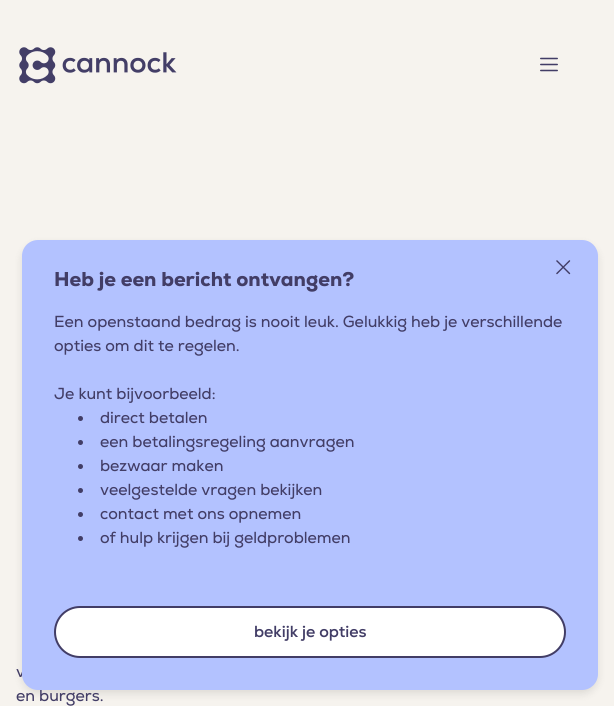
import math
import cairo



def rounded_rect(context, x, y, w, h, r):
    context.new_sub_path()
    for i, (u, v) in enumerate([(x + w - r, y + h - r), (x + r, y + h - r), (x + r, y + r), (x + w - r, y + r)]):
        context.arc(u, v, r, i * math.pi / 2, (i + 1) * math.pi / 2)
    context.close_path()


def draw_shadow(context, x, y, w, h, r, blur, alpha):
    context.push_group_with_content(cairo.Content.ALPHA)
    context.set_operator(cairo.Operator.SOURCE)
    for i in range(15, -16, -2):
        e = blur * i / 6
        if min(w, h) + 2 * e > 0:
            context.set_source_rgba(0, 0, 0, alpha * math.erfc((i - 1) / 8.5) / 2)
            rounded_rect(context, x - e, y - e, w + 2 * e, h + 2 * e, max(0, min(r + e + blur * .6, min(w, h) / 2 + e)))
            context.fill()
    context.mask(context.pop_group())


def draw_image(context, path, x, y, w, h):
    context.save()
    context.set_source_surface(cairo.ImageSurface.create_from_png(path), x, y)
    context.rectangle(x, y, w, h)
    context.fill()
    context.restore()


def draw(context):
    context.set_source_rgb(246 / 255, 243 / 255, 238 / 255)
    context.paint()
    draw_image(context, "images/1.png", 19, 47, 158, 37)
    draw_image(context, "images/2.png", 540, 57, 18, 15)
    context.set_source_rgb(0, 0, 0)
    draw_shadow(context, 22, 244, 576, 450, 16, 4, 0.1)
    context.select_font_face("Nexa")
    context.set_font_size(16)
    context.set_source_rgb(66 / 255, 61 / 255, 102 / 255)
    context.move_to(16, 677)
    context.show_text("v")
    context.move_to(16, 701)
    context.show_text("en burgers.")
    context.set_source_rgb(179 / 255, 194 / 255, 1)
    rounded_rect(context, 22, 240, 576, 450, 16)
    context.fill()
    draw_image(context, "images/3.png", 556, 260, 15, 15)
    context.set_source_rgb(1, 1, 1)
    rounded_rect(context, 55, 607, 510, 50, 25)
    context.fill_preserve()
    context.set_source_rgb(66 / 255, 61 / 255, 102 / 255)
    context.stroke()
    context.select_font_face("Nexa", cairo.FontSlant.NORMAL, cairo.FontWeight.BOLD)
    context.move_to(254, 637)
    context.show_text("bekijk je opties")
    context.select_font_face("Nexa")
    context.move_to(100, 543)
    context.show_text("of hulp krijgen bij geldproblemen")
    context.new_path()
    context.arc(80.5, 538.5, 2.5, 0, 2 * math.pi)
    context.fill()
    context.move_to(100, 519)
    context.show_text("contact met ons opnemen")
    context.new_path()
    context.arc(80.5, 514.5, 2.5, 0, 2 * math.pi)
    context.fill()
    context.move_to(100, 495)
    context.show_text("veelgestelde vragen bekijken")
    context.new_path()
    context.arc(80.5, 490.5, 2.5, 0, 2 * math.pi)
    context.fill()
    context.move_to(100, 471)
    context.show_text("bezwaar maken")
    context.new_path()
    context.arc(80.5, 466.5, 2.5, 0, 2 * math.pi)
    context.fill()
    context.move_to(100, 447)
    context.show_text("een betalingsregeling aanvragen")
    context.new_path()
    context.arc(80.5, 442.5, 2.5, 0, 2 * math.pi)
    context.fill()
    context.move_to(100, 423)
    context.show_text("direct betalen")
    context.new_path()
    context.arc(80.5, 418.5, 2.5, 0, 2 * math.pi)
    context.fill()
    context.move_to(54, 399)
    context.show_text("Je kunt bijvoorbeeld:")
    context.move_to(54, 351)
    context.show_text("opties om dit te regelen.")
    context.move_to(54, 327)
    context.show_text("Een openstaand bedrag is nooit leuk. Gelukkig heb je verschillende")
    context.select_font_face("Nexa Black")
    context.set_font_size(20)
    context.move_to(54, 286)
    context.show_text("Heb je een bericht ontvangen?")


surface = cairo.ImageSurface(cairo.Format.RGB24, 614, 706)
context = cairo.Context(surface)
options = cairo.FontOptions()
options.set_hint_metrics(cairo.HintMetrics.OFF)
options.set_hint_style(cairo.HintStyle.NONE)
context.set_font_options(options)
context.set_miter_limit(4)
draw(context)
surface.write_to_png("out.png")
